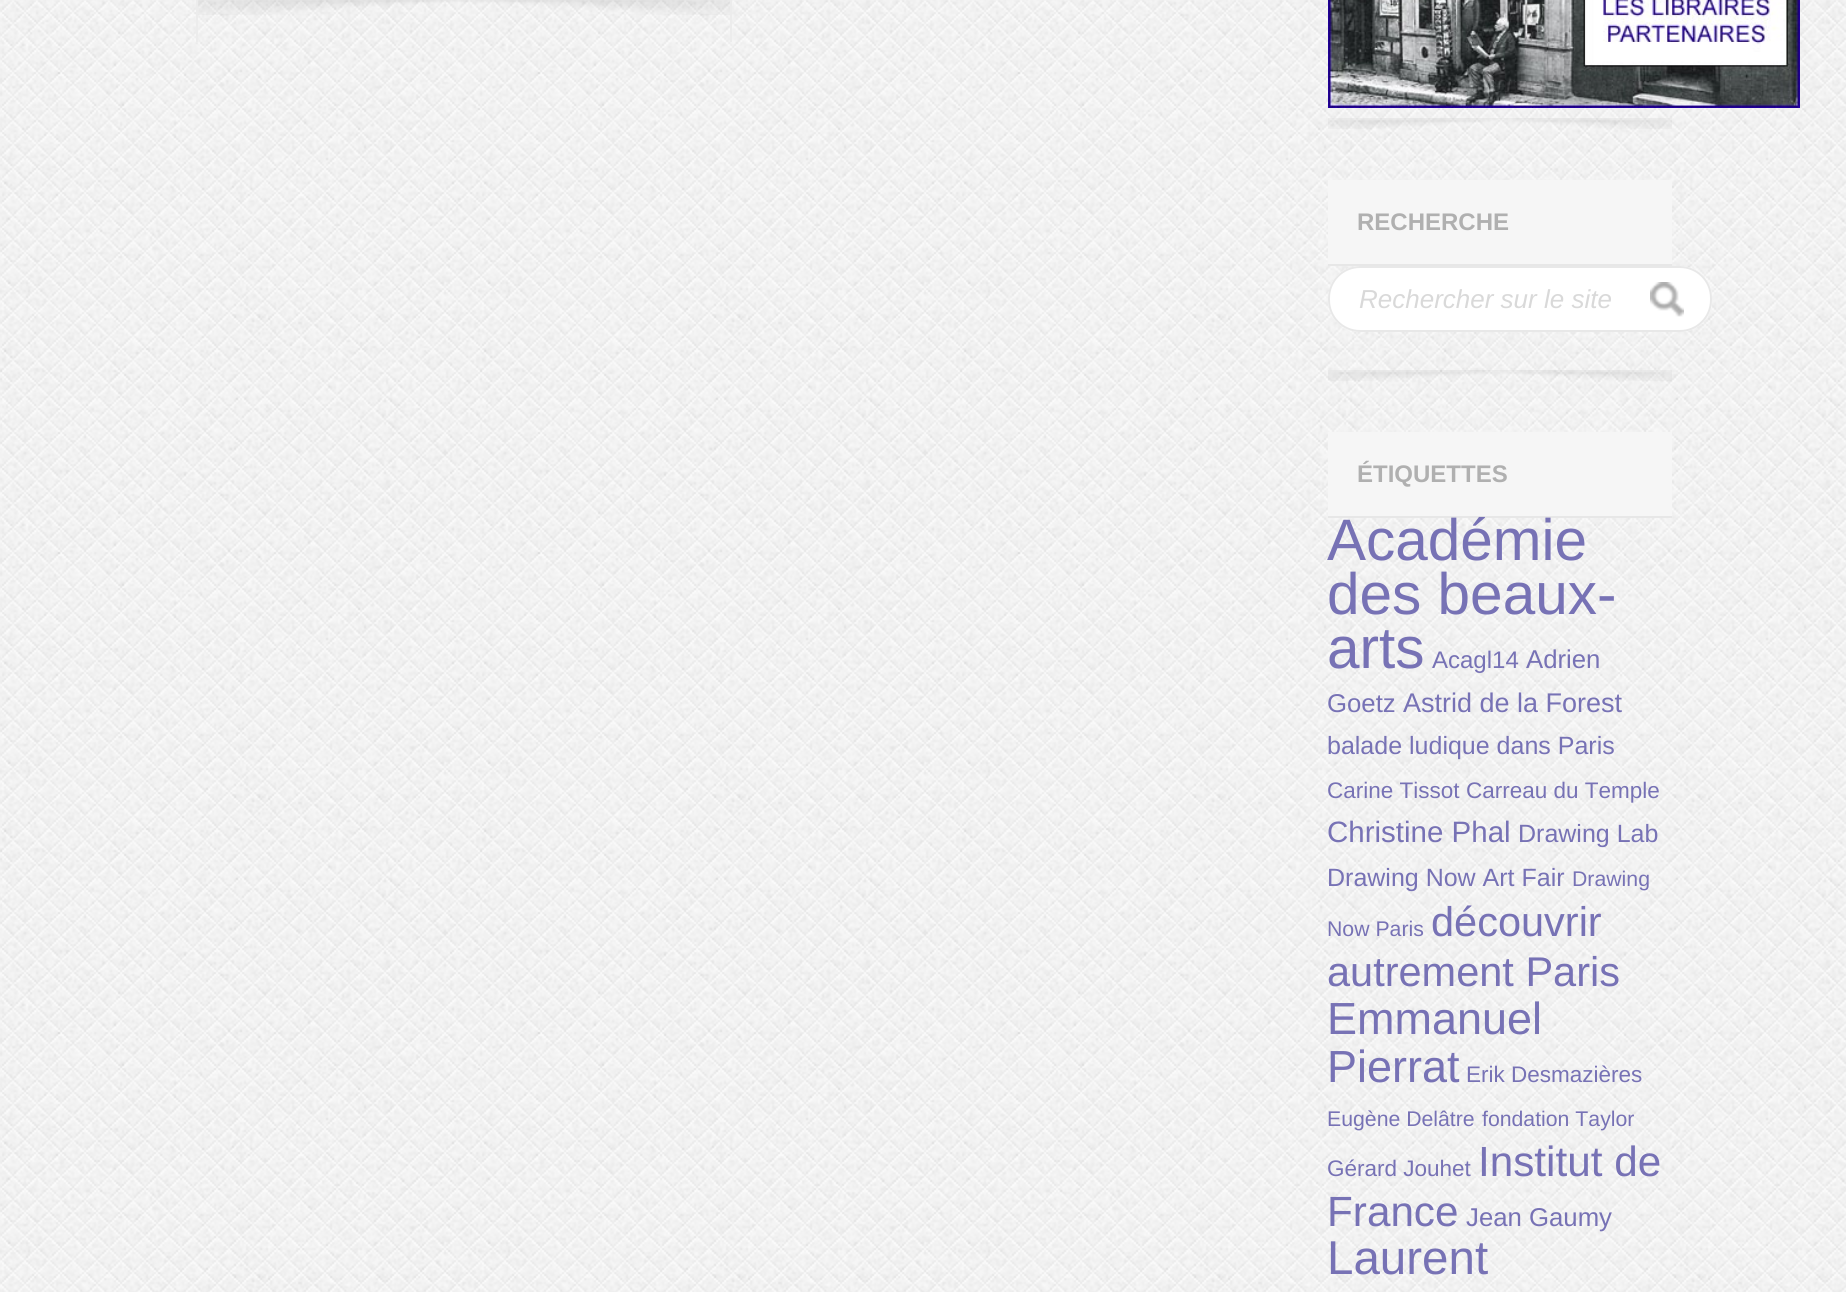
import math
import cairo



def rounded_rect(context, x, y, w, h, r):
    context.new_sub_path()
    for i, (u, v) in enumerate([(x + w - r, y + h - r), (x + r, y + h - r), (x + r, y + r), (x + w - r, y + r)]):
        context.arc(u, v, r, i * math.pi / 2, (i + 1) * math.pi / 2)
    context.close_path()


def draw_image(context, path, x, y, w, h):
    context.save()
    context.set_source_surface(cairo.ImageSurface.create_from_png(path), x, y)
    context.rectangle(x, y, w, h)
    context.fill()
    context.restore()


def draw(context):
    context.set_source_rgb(1, 1, 1)
    context.paint()
    draw_image(context, "images/1.png", 0, 0, 1846, 1292)
    draw_image(context, "images/2.png", 198, 0, 532, 15)
    context.set_source_rgb(236 / 255, 236 / 255, 236 / 255)
    context.rectangle(730, 0, 2, 42)
    context.fill()
    context.rectangle(196, 0, 2, 42)
    context.fill()
    draw_image(context, "images/3.png", 1328, 118, 344, 11)
    draw_image(context, "images/4.png", 1328, 0, 472, 108)
    draw_image(context, "images/5.png", 1328, 370, 344, 11)
    context.set_source_rgb(246 / 255, 246 / 255, 246 / 255)
    context.rectangle(1328, 180, 344, 84)
    context.fill()
    context.set_source_rgb(231 / 255, 231 / 255, 231 / 255)
    context.rectangle(1328, 264, 344, 2)
    context.fill()
    context.set_source_rgb(1, 1, 1)
    rounded_rect(context, 1328, 266, 384, 66, 32)
    context.fill()
    draw_image(context, "images/6.png", 1650, 282, 34, 35)
    rounded_rect(context, 1329, 267, 382, 64, 31)
    context.set_source_rgb(232 / 255, 232 / 255, 232 / 255)
    context.stroke()
    context.set_source_rgb(246 / 255, 246 / 255, 246 / 255)
    context.rectangle(1328, 432, 344, 84)
    context.fill()
    context.set_source_rgb(231 / 255, 231 / 255, 231 / 255)
    context.rectangle(1328, 516, 344, 2)
    context.fill()
    context.select_font_face("Liberation Sans", cairo.FontSlant.NORMAL, cairo.FontWeight.BOLD)
    context.set_font_size(24)
    context.set_source_rgb(176 / 255, 176 / 255, 176 / 255)
    context.move_to(1357, 230)
    context.show_text("RECHERCHE")
    context.select_font_face("Liberation Sans", cairo.FontSlant.ITALIC)
    context.set_font_size(26)
    context.set_source_rgb(217 / 255, 217 / 255, 217 / 255)
    context.move_to(1359, 308)
    context.show_text("Rechercher sur le site")
    context.select_font_face("Liberation Sans", cairo.FontSlant.NORMAL, cairo.FontWeight.BOLD)
    context.set_font_size(24)
    context.set_source_rgb(176 / 255, 176 / 255, 176 / 255)
    context.move_to(1357, 482)
    context.show_text("ÉTIQUETTES")
    context.select_font_face("Liberation Sans")
    context.set_font_size(58.5)
    context.set_source_rgb(119 / 255, 114 / 255, 181 / 255)
    context.move_to(1327, 560)
    context.show_text("Académie")
    context.move_to(1327, 614)
    context.show_text("des beaux-")
    context.move_to(1327, 668)
    context.show_text("arts")
    context.set_font_size(24)
    context.move_to(1432, 668)
    context.show_text("Acagl14")
    context.set_font_size(25.75)
    context.move_to(1526, 668)
    context.show_text("Adrien")
    context.move_to(1327, 712)
    context.show_text("Goetz")
    context.set_font_size(27)
    context.move_to(1403, 712)
    context.show_text("Astrid de la Forest")
    context.set_font_size(25)
    context.move_to(1327, 754)
    context.show_text("balade ludique dans Paris")
    context.set_font_size(22.5)
    context.move_to(1327, 798)
    context.show_text("Carine Tissot")
    context.move_to(1466, 798)
    context.show_text("Carreau du Temple")
    context.set_font_size(29.5)
    context.move_to(1327, 842)
    context.show_text("Christine Phal")
    context.set_font_size(25)
    context.move_to(1518, 842)
    context.show_text("Drawing Lab")
    context.move_to(1327, 886)
    context.show_text("Drawing Now Art Fair")
    context.set_font_size(21.25)
    context.move_to(1572, 886)
    context.show_text("Drawing")
    context.move_to(1327, 936)
    context.show_text("Now Paris")
    context.set_font_size(41.5)
    context.move_to(1431, 936)
    context.show_text("découvrir")
    context.move_to(1327, 986)
    context.show_text("autrement Paris")
    context.set_font_size(45)
    context.move_to(1327, 1034)
    context.show_text("Emmanuel")
    context.move_to(1327, 1082)
    context.show_text("Pierrat")
    context.set_font_size(22.5)
    context.move_to(1466, 1082)
    context.show_text("Erik Desmazières")
    context.set_font_size(21.25)
    context.move_to(1327, 1126)
    context.show_text("Eugène Delâtre")
    context.move_to(1482, 1126)
    context.show_text("fondation Taylor")
    context.set_font_size(22.5)
    context.move_to(1327, 1176)
    context.show_text("Gérard Jouhet")
    context.set_font_size(42.25)
    context.move_to(1478, 1176)
    context.show_text("Institut de")
    context.move_to(1327, 1226)
    context.show_text("France")
    context.set_font_size(25.75)
    context.move_to(1466, 1226)
    context.show_text("Jean Gaumy")
    context.set_font_size(47.5)
    context.move_to(1327, 1274)
    context.show_text("Laurent")


surface = cairo.ImageSurface(cairo.Format.RGB24, 1846, 1292)
context = cairo.Context(surface)
options = cairo.FontOptions()
options.set_hint_metrics(cairo.HintMetrics.OFF)
options.set_hint_style(cairo.HintStyle.NONE)
context.set_font_options(options)
context.set_miter_limit(4)
draw(context)
surface.write_to_png("out.png")
